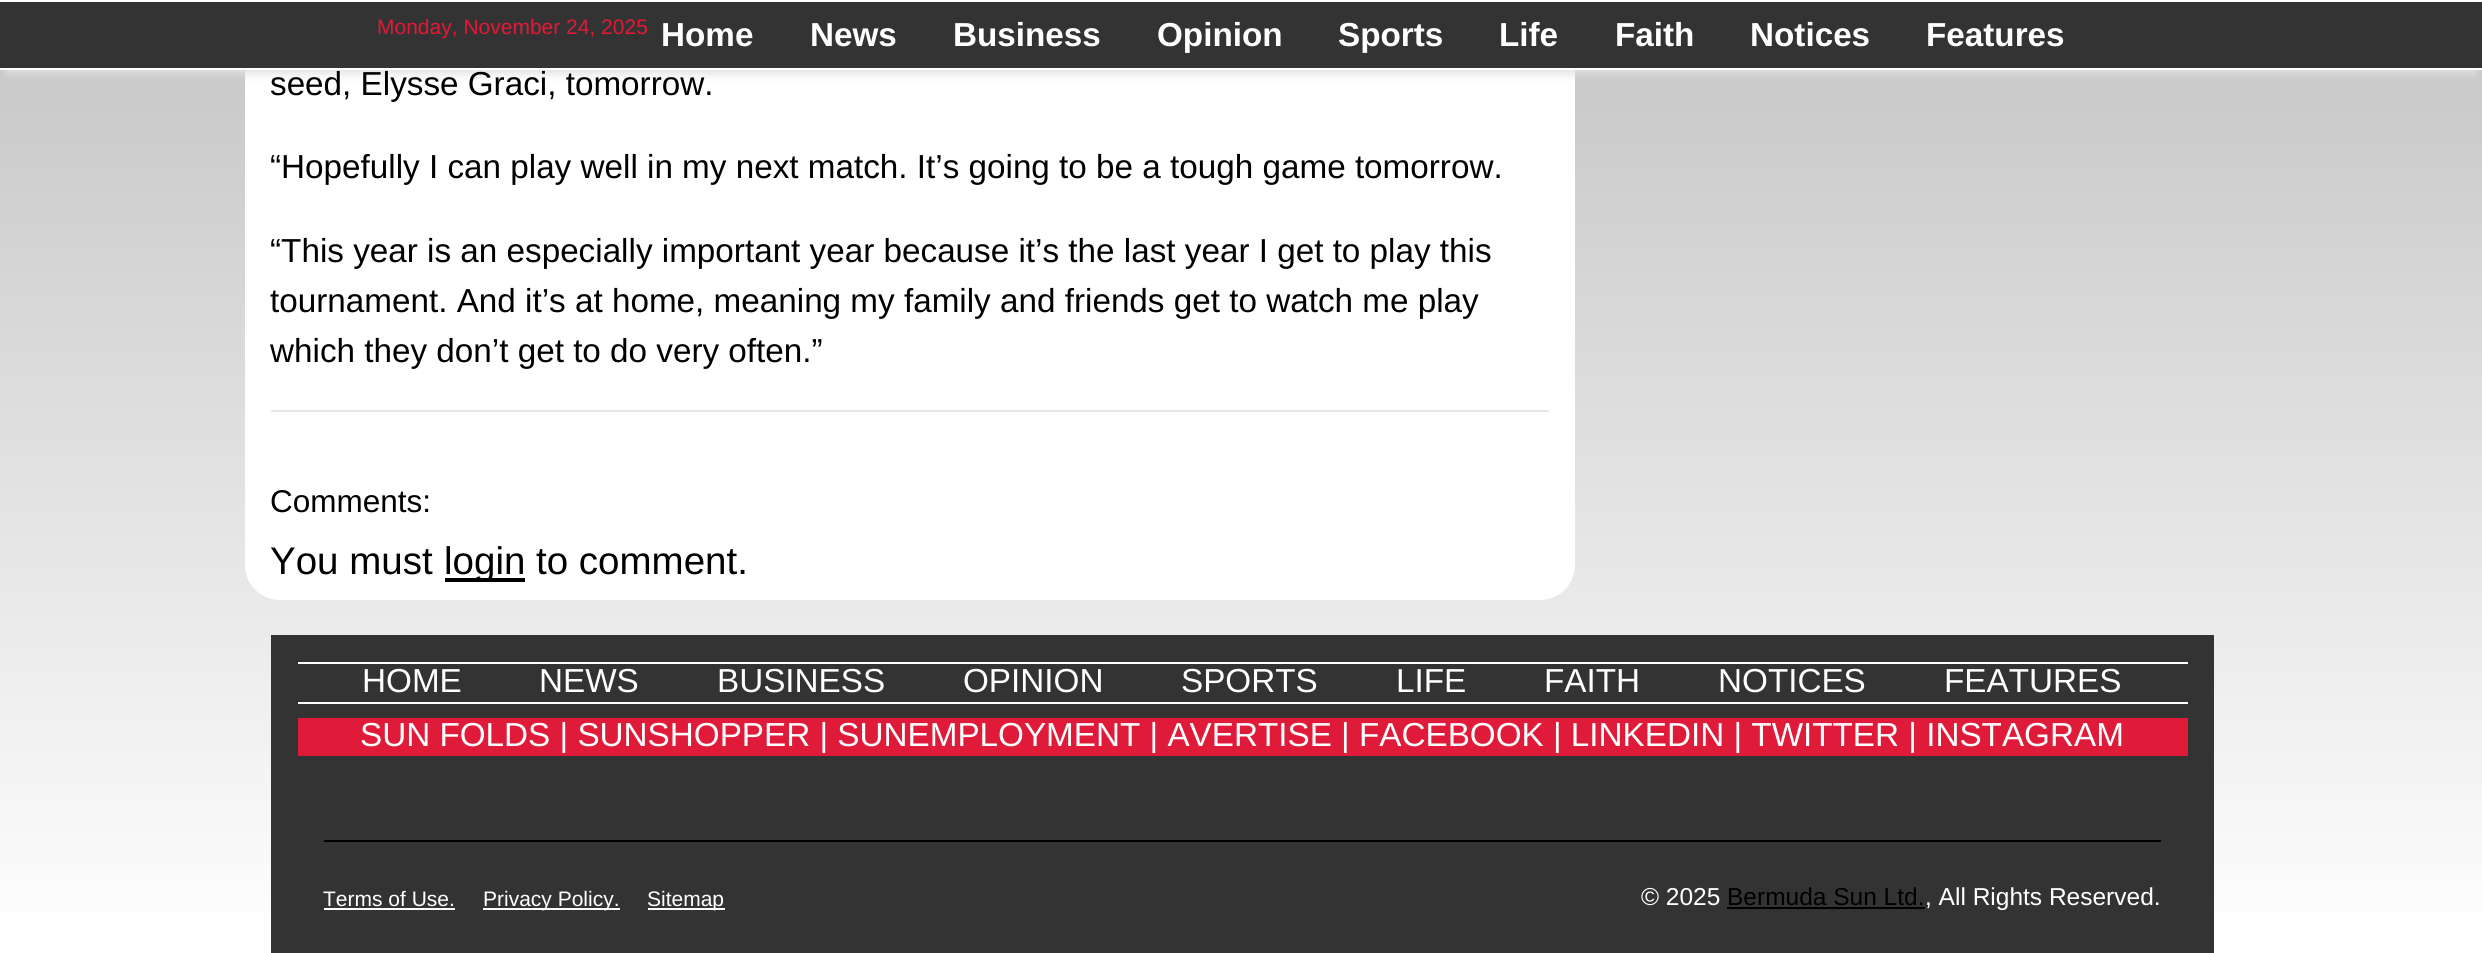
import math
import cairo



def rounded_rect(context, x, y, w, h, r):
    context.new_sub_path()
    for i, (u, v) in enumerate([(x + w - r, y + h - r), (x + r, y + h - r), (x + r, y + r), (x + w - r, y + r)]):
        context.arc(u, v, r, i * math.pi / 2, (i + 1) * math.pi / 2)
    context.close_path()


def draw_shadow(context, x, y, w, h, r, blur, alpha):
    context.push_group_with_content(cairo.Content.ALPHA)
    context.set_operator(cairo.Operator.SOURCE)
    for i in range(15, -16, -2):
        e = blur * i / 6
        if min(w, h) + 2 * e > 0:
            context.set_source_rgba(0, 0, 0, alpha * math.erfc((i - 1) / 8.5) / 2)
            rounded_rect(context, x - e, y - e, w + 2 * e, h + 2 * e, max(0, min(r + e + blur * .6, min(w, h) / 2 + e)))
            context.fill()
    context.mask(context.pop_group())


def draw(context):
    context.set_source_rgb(1, 1, 1)
    context.paint()
    gradient = cairo.LinearGradient(1242, -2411, 1242, 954)
    gradient.add_color_stop_rgba(0, 119 / 255, 119 / 255, 119 / 255, 1)
    gradient.add_color_stop_rgba(0.33, 187 / 255, 187 / 255, 187 / 255, 1)
    gradient.add_color_stop_rgba(0.67, 187 / 255, 187 / 255, 187 / 255, 1)
    gradient.add_color_stop_rgba(1, 1, 1, 1, 1)
    context.set_source(gradient)
    context.rectangle(0, 70, 2482, 843)
    context.fill()
    context.set_source_rgb(1, 1, 1)
    rounded_rect(context, 245, -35, 1330, 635, 35)
    context.fill()
    context.set_source_rgb(225 / 255, 225 / 255, 225 / 255)
    draw_shadow(context, 7, 18, 2469, 56, 0, 4.5, 1)
    context.set_source_rgb(51 / 255, 51 / 255, 51 / 255)
    context.rectangle(0, 2, 2482, 66)
    context.fill()
    context.set_source_rgb(1, 1, 1)
    context.rectangle(0, 68, 2482, 2)
    context.fill()
    context.set_source_rgb(230 / 255, 230 / 255, 230 / 255)
    context.rectangle(271, 410, 1278, 2)
    context.fill()
    context.set_source_rgb(0, 0, 0)
    context.rectangle(445, 578, 80, 4)
    context.fill()
    context.set_source_rgb(51 / 255, 51 / 255, 51 / 255)
    context.rectangle(271, 635, 1943, 318)
    context.fill()
    context.set_source_rgb(1, 1, 1)
    context.rectangle(298, 662, 1890, 2)
    context.fill()
    context.rectangle(298, 702, 1890, 2)
    context.fill()
    context.set_source_rgb(224 / 255, 27 / 255, 57 / 255)
    context.rectangle(298, 718, 1890, 38)
    context.fill()
    context.set_source_rgb(0, 0, 0)
    context.rectangle(324, 840, 1837, 2)
    context.fill()
    context.set_source_rgb(1, 1, 1)
    context.rectangle(324, 908, 131, 2)
    context.fill()
    context.rectangle(483, 908, 137, 2)
    context.fill()
    context.rectangle(648, 908, 77, 2)
    context.fill()
    context.set_source_rgb(0, 0, 0)
    context.rectangle(1727, 907, 198, 2)
    context.fill()
    context.select_font_face("Liberation Sans")
    context.set_font_size(21)
    context.set_source_rgb(227 / 255, 24 / 255, 54 / 255)
    context.move_to(377, 34)
    context.show_text("Monday, November 24, 2025")
    context.select_font_face("Liberation Sans", cairo.FontSlant.NORMAL, cairo.FontWeight.BOLD)
    context.set_font_size(33.25)
    context.set_source_rgb(1, 1, 1)
    context.move_to(661, 46)
    context.show_text("Home")
    context.move_to(810, 46)
    context.show_text("News")
    context.move_to(953, 46)
    context.show_text("Business")
    context.move_to(1157, 46)
    context.show_text("Opinion")
    context.move_to(1338, 46)
    context.show_text("Sports")
    context.move_to(1499, 46)
    context.show_text("Life")
    context.move_to(1615, 46)
    context.show_text("Faith")
    context.move_to(1750, 46)
    context.show_text("Notices")
    context.move_to(1926, 46)
    context.show_text("Features")
    context.select_font_face("Liberation Sans")
    context.set_source_rgb(0, 0, 0)
    context.move_to(270, 95)
    context.show_text("seed, Elysse Graci, tomorrow.")
    context.move_to(270, 178)
    context.show_text("“Hopefully I can play well in my next match. It’s going to be a tough game tomorrow.")
    context.move_to(270, 262)
    context.show_text("“This year is an especially important year because it’s the last year I get to play this")
    context.move_to(270, 312)
    context.show_text("tournament. And it’s at home, meaning my family and friends get to watch me play")
    context.move_to(270, 362)
    context.show_text("which they don’t get to do very often.”")
    context.set_font_size(31.5)
    context.move_to(270, 512)
    context.show_text("Comments:")
    context.set_font_size(38.5)
    context.move_to(270, 574)
    context.show_text("You must")
    context.move_to(444, 574)
    context.show_text("login to comment.")
    context.set_font_size(33.25)
    context.set_source_rgb(1, 1, 1)
    context.move_to(362, 692)
    context.show_text("HOME")
    context.move_to(539, 692)
    context.show_text("NEWS")
    context.move_to(717, 692)
    context.show_text("BUSINESS")
    context.move_to(963, 692)
    context.show_text("OPINION")
    context.move_to(1181, 692)
    context.show_text("SPORTS")
    context.move_to(1396, 692)
    context.show_text("LIFE")
    context.move_to(1544, 692)
    context.show_text("FAITH")
    context.move_to(1718, 692)
    context.show_text("NOTICES")
    context.move_to(1944, 692)
    context.show_text("FEATURES")
    context.move_to(360, 746)
    context.show_text("SUN FOLDS | SUNSHOPPER | SUNEMPLOYMENT | AVERTISE | FACEBOOK | LINKEDIN | TWITTER | INSTAGRAM")
    context.set_font_size(21)
    context.move_to(323, 906)
    context.show_text("Terms of Use.")
    context.move_to(483, 906)
    context.show_text("Privacy Policy.")
    context.move_to(647, 906)
    context.show_text("Sitemap")
    context.set_font_size(24.5)
    context.move_to(1641, 905)
    context.show_text("© 2025")
    context.set_source_rgb(0, 0, 0)
    context.move_to(1727, 905)
    context.show_text("Bermuda Sun Ltd.")
    context.set_source_rgb(1, 1, 1)
    context.move_to(1925, 905)
    context.show_text(", All Rights Reserved.")


surface = cairo.ImageSurface(cairo.Format.RGB24, 2482, 953)
context = cairo.Context(surface)
options = cairo.FontOptions()
options.set_hint_metrics(cairo.HintMetrics.OFF)
options.set_hint_style(cairo.HintStyle.NONE)
context.set_font_options(options)
context.set_miter_limit(4)
draw(context)
surface.write_to_png("out.png")
